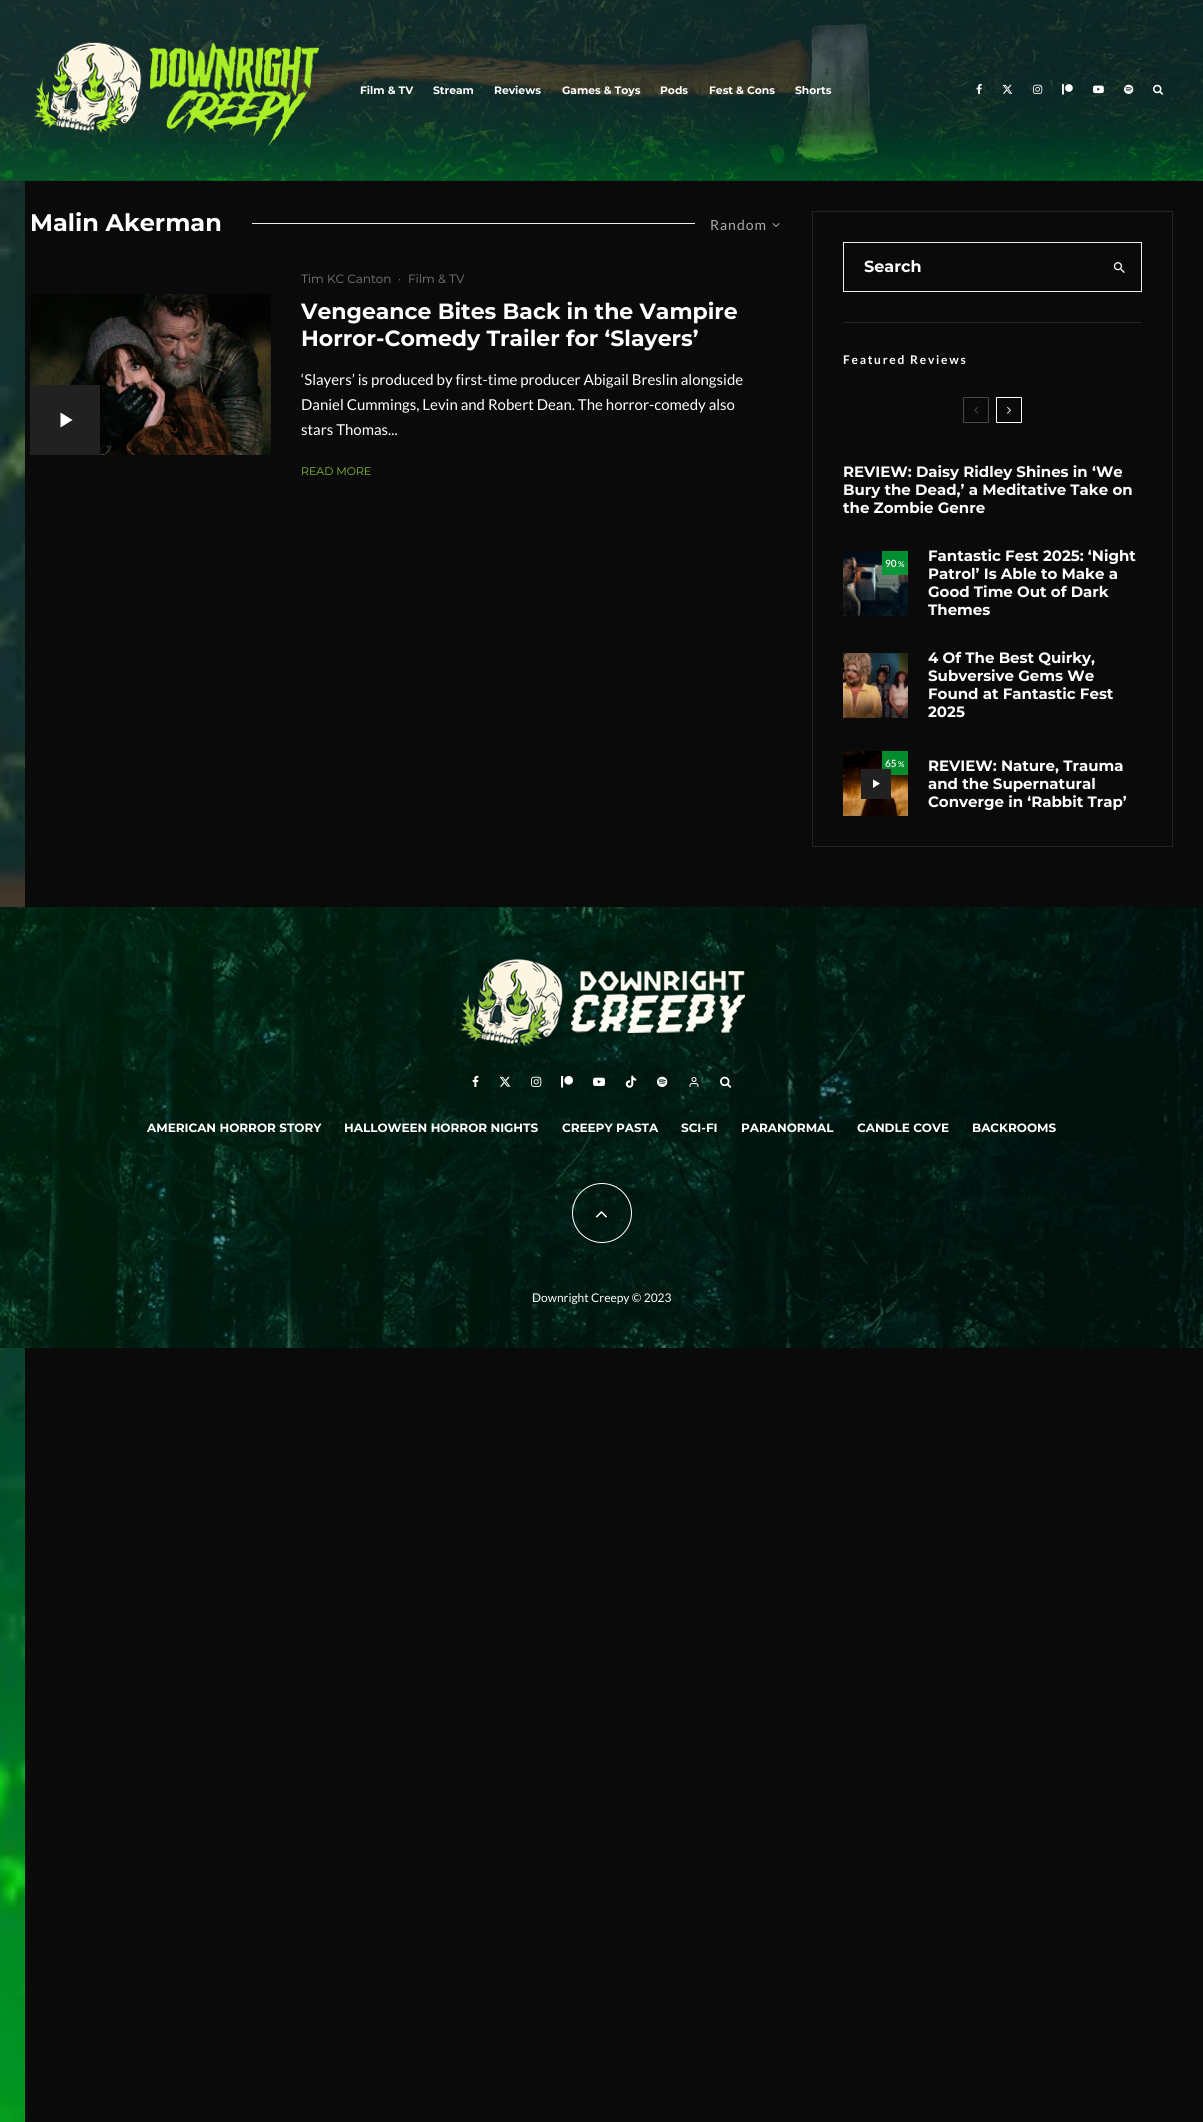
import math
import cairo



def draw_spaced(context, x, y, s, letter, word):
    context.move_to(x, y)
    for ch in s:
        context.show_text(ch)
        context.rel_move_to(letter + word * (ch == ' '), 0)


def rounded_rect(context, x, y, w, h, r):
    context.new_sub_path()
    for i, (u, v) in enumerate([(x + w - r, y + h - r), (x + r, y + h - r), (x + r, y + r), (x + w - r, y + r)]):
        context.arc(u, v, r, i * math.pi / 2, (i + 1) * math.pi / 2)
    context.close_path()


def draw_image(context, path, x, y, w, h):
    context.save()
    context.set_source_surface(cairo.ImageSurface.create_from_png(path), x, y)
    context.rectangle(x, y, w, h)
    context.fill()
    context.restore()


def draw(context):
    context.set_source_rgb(10 / 255, 10 / 255, 10 / 255)
    context.paint()
    gradient = cairo.LinearGradient(204, -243, 999, 424)
    gradient.add_color_stop_rgba(0, 24 / 255, 46 / 255, 46 / 255, 1)
    gradient.add_color_stop_rgba(0.8, 0, 24 / 255, 25 / 255, 1)
    context.set_source(gradient)
    context.rectangle(0, 0, 1203, 181)
    context.fill()
    draw_image(context, "images/1.png", 0, 0, 1203, 181)
    draw_image(context, "images/2.png", 31, 42, 288, 103)
    draw_image(context, "images/3.png", 976, 84, 6, 10)
    draw_image(context, "images/4.png", 1002, 84, 11, 10)
    draw_image(context, "images/5.png", 1033, 84, 10, 10)
    draw_image(context, "images/6.png", 1062, 84, 11, 11)
    draw_image(context, "images/7.png", 1093, 85, 11, 9)
    draw_image(context, "images/8.png", 1124, 84, 10, 10)
    draw_image(context, "images/9.png", 1153, 84, 10, 11)
    draw_image(context, "images/10.png", 0, 181, 25, 1941)
    context.set_source_rgb(238 / 255, 238 / 255, 238 / 255)
    context.rectangle(252, 223, 443, 1)
    context.fill()
    draw_image(context, "images/11.png", 772, 223, 8, 4)
    draw_image(context, "images/12.png", 30, 294, 241, 161)
    context.set_source_rgb(33 / 255, 33 / 255, 33 / 255)
    context.rectangle(30, 385, 70, 70)
    context.fill()
    context.set_source_rgb(1, 1, 1)
    context.new_path()
    context.move_to(60.5, 412.5)
    context.line_to(72.5, 420)
    context.line_to(60.5, 427.5)
    context.close_path()
    context.fill()
    context.rectangle(812.5, 211.5, 360, 635)
    context.set_source_rgb(35 / 255, 35 / 255, 35 / 255)
    context.set_line_width(1)
    context.stroke()
    context.rectangle(843, 322, 299, 1)
    context.fill()
    context.rectangle(843.5, 242.5, 298, 49)
    context.set_source_rgb(238 / 255, 238 / 255, 238 / 255)
    context.stroke()
    draw_image(context, "images/13.png", 1113, 262, 12, 11)
    rounded_rect(context, 963.5, 397.5, 25, 25, 0.5)
    context.set_source_rgb(71 / 255, 71 / 255, 71 / 255)
    context.stroke()
    draw_image(context, "images/14.png", 974, 407, 4, 7)
    rounded_rect(context, 996.5, 397.5, 25, 25, 0.5)
    context.set_source_rgb(1, 1, 1)
    context.stroke()
    draw_image(context, "images/15.png", 1007, 407, 4, 7)
    draw_image(context, "images/16.png", 843, 551, 65, 65)
    context.set_source_rgba(0, 154 / 255, 51 / 255, 0.9)
    context.rectangle(882, 551, 26, 24)
    context.fill()
    draw_image(context, "images/17.png", 843, 652, 65, 66)
    draw_image(context, "images/18.png", 843, 751, 65, 65)
    context.rectangle(882, 751, 26, 24)
    context.fill()
    context.set_source_rgb(33 / 255, 33 / 255, 33 / 255)
    context.rectangle(861, 769, 30, 30)
    context.fill()
    context.set_source_rgb(1, 1, 1)
    context.new_path()
    context.move_to(873, 779.5)
    context.line_to(880, 783.5)
    context.line_to(873, 788)
    context.close_path()
    context.fill()
    gradient = cairo.LinearGradient(140, 740, 1063, 1515)
    gradient.add_color_stop_rgba(0, 0, 58 / 255, 23 / 255, 1)
    gradient.add_color_stop_rgba(0.8, 0, 30 / 255, 20 / 255, 1)
    context.set_source(gradient)
    context.rectangle(0, 907, 1203, 441)
    context.fill()
    draw_image(context, "images/19.png", 0, 907, 1203, 441)
    draw_image(context, "images/20.png", 458, 959, 287, 87)
    draw_image(context, "images/21.png", 472, 1075, 7, 12)
    draw_image(context, "images/22.png", 499, 1076, 12, 11)
    draw_image(context, "images/23.png", 531, 1076, 11, 11)
    draw_image(context, "images/24.png", 561, 1076, 12, 12)
    draw_image(context, "images/25.png", 593, 1077, 12, 10)
    draw_image(context, "images/26.png", 625, 1075, 12, 13)
    draw_image(context, "images/27.png", 657, 1076, 11, 11)
    draw_image(context, "images/28.png", 689, 1077, 10, 10)
    draw_image(context, "images/29.png", 720, 1076, 12, 12)
    context.arc(602, 1213, 29.5, 0, 2 * math.pi)
    context.set_source_rgb(1, 1, 1)
    context.stroke()
    draw_image(context, "images/30.png", 595, 1211, 12, 7)
    context.select_font_face("Montserrat", cairo.FontSlant.NORMAL, cairo.FontWeight.BOLD)
    context.set_font_size(10.75)
    context.move_to(360, 94)
    context.show_text("Film & TV")
    context.move_to(433, 94)
    context.show_text("Stream")
    context.move_to(494, 94)
    context.show_text("Reviews")
    context.move_to(562, 94)
    context.show_text("Games & Toys")
    context.move_to(660, 94)
    context.show_text("Pods")
    context.move_to(709, 94)
    context.show_text("Fest & Cons")
    context.move_to(795, 94)
    context.show_text("Shorts")
    context.set_font_size(24)
    context.move_to(30, 231)
    context.show_text("Malin Akerman")
    context.select_font_face("Lato")
    context.set_font_size(14)
    context.set_source_rgb(170 / 255, 170 / 255, 170 / 255)
    draw_spaced(context, 710, 230, "Random", 1, 0)
    context.select_font_face("Montserrat")
    context.set_font_size(12)
    context.set_source_rgb(123 / 255, 123 / 255, 123 / 255)
    context.move_to(301, 283)
    context.show_text("Tim KC Canton")
    context.move_to(398, 283)
    context.show_text("·")
    context.move_to(408, 283)
    context.show_text("Film & TV")
    context.select_font_face("Montserrat", cairo.FontSlant.NORMAL, cairo.FontWeight.BOLD)
    context.set_font_size(22)
    context.set_source_rgb(1, 1, 1)
    context.move_to(301, 319)
    context.show_text("Vengeance Bites Back in the Vampire")
    context.move_to(301, 346)
    context.show_text("Horror-Comedy Trailer for ‘Slayers’")
    context.select_font_face("Lato")
    context.set_font_size(15)
    context.move_to(301, 385)
    context.show_text("‘Slayers’ is produced by first-time producer Abigail Breslin alongside")
    context.move_to(301, 410)
    context.show_text("Daniel Cummings, Levin and Robert Dean. The horror-comedy also")
    context.move_to(301, 435)
    context.show_text("stars Thomas...")
    context.select_font_face("Montserrat")
    context.set_font_size(11)
    context.set_source_rgb(132 / 255, 190 / 255, 51 / 255)
    context.move_to(301, 475)
    context.show_text("READ MORE")
    context.select_font_face("Montserrat", cairo.FontSlant.NORMAL, cairo.FontWeight.BOLD)
    context.set_font_size(16)
    context.set_source_rgb(1, 1, 1)
    context.move_to(864, 272)
    context.show_text("Search")
    context.select_font_face("Lato", cairo.FontSlant.NORMAL, cairo.FontWeight.BOLD)
    context.set_font_size(12)
    draw_spaced(context, 843, 364, "Featured Reviews", 1.75, 0)
    context.select_font_face("Montserrat", cairo.FontSlant.NORMAL, cairo.FontWeight.BOLD)
    context.set_font_size(15)
    context.move_to(843, 477)
    context.show_text("REVIEW: Daisy Ridley Shines in ‘We")
    context.move_to(843, 495)
    context.show_text("Bury the Dead,’ a Meditative Take on")
    context.move_to(843, 513)
    context.show_text("the Zombie Genre")
    context.select_font_face("Lato", cairo.FontSlant.NORMAL, cairo.FontWeight.BOLD)
    context.set_font_size(10)
    context.set_source_rgb(230 / 255, 244 / 255, 235 / 255)
    context.move_to(885, 567)
    context.show_text("90")
    context.set_font_size(8)
    context.move_to(898, 567)
    context.show_text("%")
    context.select_font_face("Montserrat", cairo.FontSlant.NORMAL, cairo.FontWeight.BOLD)
    context.set_font_size(15)
    context.set_source_rgb(1, 1, 1)
    context.move_to(928, 561)
    context.show_text("Fantastic Fest 2025: ‘Night")
    context.move_to(928, 579)
    context.show_text("Patrol’ Is Able to Make a")
    context.move_to(928, 597)
    context.show_text("Good Time Out of Dark")
    context.move_to(928, 615)
    context.show_text("Themes")
    context.move_to(928, 663)
    context.show_text("4 Of The Best Quirky,")
    context.move_to(928, 681)
    context.show_text("Subversive Gems We")
    context.move_to(928, 699)
    context.show_text("Found at Fantastic Fest")
    context.move_to(928, 717)
    context.show_text("2025")
    context.select_font_face("Lato", cairo.FontSlant.NORMAL, cairo.FontWeight.BOLD)
    context.set_font_size(10)
    context.set_source_rgb(230 / 255, 244 / 255, 235 / 255)
    context.move_to(885, 767)
    context.show_text("65")
    context.set_font_size(8)
    context.move_to(898, 767)
    context.show_text("%")
    context.select_font_face("Montserrat", cairo.FontSlant.NORMAL, cairo.FontWeight.BOLD)
    context.set_font_size(15)
    context.set_source_rgb(1, 1, 1)
    context.move_to(928, 771)
    context.show_text("REVIEW: Nature, Trauma")
    context.move_to(928, 789)
    context.show_text("and the Supernatural")
    context.move_to(928, 807)
    context.show_text("Converge in ‘Rabbit Trap’")
    context.set_font_size(12)
    context.move_to(147, 1132)
    context.show_text("AMERICAN HORROR STORY")
    context.move_to(344, 1132)
    context.show_text("HALLOWEEN HORROR NIGHTS")
    context.move_to(562, 1132)
    context.show_text("CREEPY PASTA")
    context.move_to(681, 1132)
    context.show_text("SCI-FI")
    context.move_to(741, 1132)
    context.show_text("PARANORMAL")
    context.move_to(857, 1132)
    context.show_text("CANDLE COVE")
    context.move_to(972, 1132)
    context.show_text("BACKROOMS")
    context.select_font_face("Lato")
    context.move_to(532, 1302)
    context.show_text("Downright Creepy © 2023")


surface = cairo.ImageSurface(cairo.Format.RGB24, 1203, 2122)
context = cairo.Context(surface)
options = cairo.FontOptions()
options.set_hint_metrics(cairo.HintMetrics.OFF)
options.set_hint_style(cairo.HintStyle.NONE)
context.set_font_options(options)
context.set_miter_limit(4)
draw(context)
surface.write_to_png("out.png")
